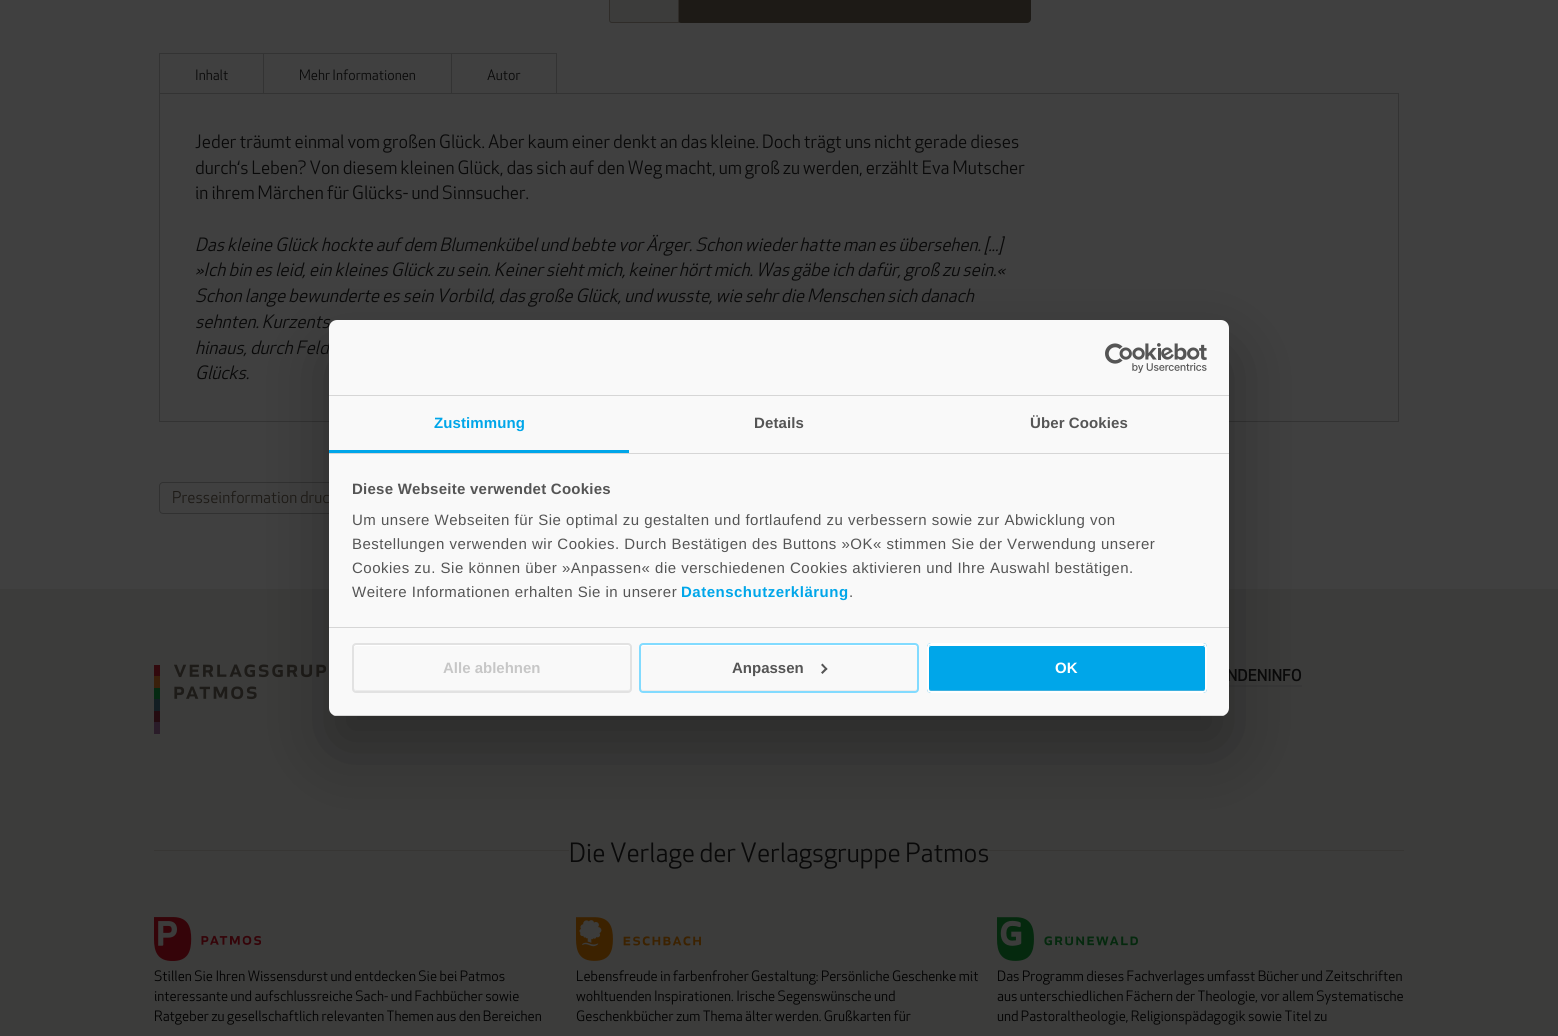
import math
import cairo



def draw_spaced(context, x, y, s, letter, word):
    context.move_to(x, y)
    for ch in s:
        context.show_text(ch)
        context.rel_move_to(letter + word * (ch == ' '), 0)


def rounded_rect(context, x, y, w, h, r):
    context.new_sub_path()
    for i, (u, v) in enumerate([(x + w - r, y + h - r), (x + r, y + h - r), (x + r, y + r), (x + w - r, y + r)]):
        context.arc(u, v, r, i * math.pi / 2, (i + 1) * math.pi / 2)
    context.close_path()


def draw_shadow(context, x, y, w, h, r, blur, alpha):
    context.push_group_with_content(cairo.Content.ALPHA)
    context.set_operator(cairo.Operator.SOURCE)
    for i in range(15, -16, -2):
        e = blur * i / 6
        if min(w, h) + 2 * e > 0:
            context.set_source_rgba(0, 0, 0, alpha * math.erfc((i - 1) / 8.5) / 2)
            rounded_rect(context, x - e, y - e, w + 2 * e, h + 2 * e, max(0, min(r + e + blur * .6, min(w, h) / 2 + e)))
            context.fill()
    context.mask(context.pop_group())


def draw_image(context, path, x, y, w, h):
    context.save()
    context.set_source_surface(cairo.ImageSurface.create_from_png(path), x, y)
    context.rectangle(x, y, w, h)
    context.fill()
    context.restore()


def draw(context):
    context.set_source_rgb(64 / 255, 64 / 255, 64 / 255)
    context.paint()
    context.set_source_rgb(29 / 255, 26 / 255, 22 / 255)
    rounded_rect(context, 677, -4, 354, 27, 4)
    context.fill()
    context.set_source_rgb(60 / 255, 60 / 255, 59 / 255)
    context.new_path()
    context.move_to(612, -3.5)
    context.line_to(678.5, -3.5)
    context.line_to(678.5, 22.5)
    context.line_to(612, 22.5)
    context.curve_to(610.5, 22.5, 609.5, 21.5, 609.5, 20)
    context.line_to(609.5, -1)
    context.curve_to(609.5, -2.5, 610.5, -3.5, 612, -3.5)
    context.close_path()
    context.fill_preserve()
    context.set_source_rgb(47 / 255, 44 / 255, 41 / 255)
    context.set_line_width(1)
    context.stroke()
    context.set_source_rgb(51 / 255, 51 / 255, 51 / 255)
    context.rectangle(159, 53, 398, 1)
    context.fill()
    context.rectangle(159, 53, 1, 40)
    context.fill()
    context.rectangle(263, 53, 1, 40)
    context.fill()
    context.rectangle(556, 53, 1, 40)
    context.fill()
    context.rectangle(451, 53, 1, 40)
    context.fill()
    context.rectangle(159.5, 93.5, 1239, 328)
    context.stroke()
    rounded_rect(context, 159.5, 482.5, 207, 31, 3.5)
    context.set_source_rgb(49 / 255, 49 / 255, 49 / 255)
    context.stroke()
    context.set_source_rgb(60 / 255, 60 / 255, 59 / 255)
    context.rectangle(0, 589, 1558, 447)
    context.fill()
    draw_image(context, "images/1.png", 154, 664, 173, 70)
    context.set_source_rgb(56 / 255, 56 / 255, 56 / 255)
    context.rectangle(1229, 685, 73, 2)
    context.fill()
    context.set_source_rgb(55 / 255, 54 / 255, 52 / 255)
    context.rectangle(154, 850, 415, 1)
    context.fill()
    context.rectangle(989, 850, 415, 1)
    context.fill()
    draw_image(context, "images/2.png", 154, 917, 107, 44)
    draw_image(context, "images/3.png", 576, 917, 125, 44)
    draw_image(context, "images/4.png", 997, 917, 141, 44)
    context.set_source_rgb(0, 0, 0)
    draw_shadow(context, 329, 352, 900, 396, 8, 34, 0.3)
    context.select_font_face("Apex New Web")
    context.set_font_size(14)
    context.set_source_rgb(9 / 255, 9 / 255, 9 / 255)
    context.move_to(195, 80)
    context.show_text("Inhalt")
    context.move_to(299, 80)
    context.show_text("Mehr Informationen")
    context.move_to(487, 80)
    context.show_text("Autor")
    context.set_font_size(18)
    context.move_to(195, 148)
    context.show_text("Jeder träumt einmal vom großen Glück. Aber kaum einer denkt an das kleine. Doch trägt uns nicht gerade dieses")
    context.move_to(195, 174)
    context.show_text("durch‘s Leben? Von diesem kleinen Glück, das sich auf den Weg macht, um groß zu werden, erzählt Eva Mutscher")
    context.move_to(195, 199)
    context.show_text("in ihrem Märchen für Glücks- und Sinnsucher.")
    context.select_font_face("Apex New Web", cairo.FontSlant.ITALIC)
    context.move_to(195, 251)
    context.show_text("Das kleine Glück hockte auf dem Blumenkübel und bebte vor Ärger. Schon wieder hatte man es übersehen. [...]")
    context.move_to(195, 276)
    context.show_text("»Ich bin es leid, ein kleines Glück zu sein. Keiner sieht mich, keiner hört mich. Was gäbe ich dafür, groß zu sein.«")
    context.move_to(195, 302)
    context.show_text("Schon lange bewunderte es sein Vorbild, das große Glück, und wusste, wie sehr die Menschen sich danach")
    context.move_to(195, 328)
    context.show_text("sehnten. Kurzents")
    context.move_to(195, 354)
    context.show_text("hinaus, durch Feld")
    context.move_to(195, 379)
    context.show_text("Glücks.")
    context.select_font_face("Apex New Web")
    context.set_font_size(16)
    context.set_source_rgb(29 / 255, 26 / 255, 22 / 255)
    context.move_to(172, 503)
    context.show_text("Presseinformation druc")
    context.select_font_face("Apex New Web Medium")
    context.set_source_rgb(9 / 255, 9 / 255, 9 / 255)
    context.move_to(1227, 681)
    context.show_text("NDENINFO")
    context.select_font_face("Apex New Web")
    context.set_font_size(26)
    context.move_to(569, 862)
    context.show_text("Die Verlage der Verlagsgruppe Patmos")
    context.set_font_size(14)
    context.set_source_rgb(0, 0, 0)
    context.move_to(154, 981)
    context.show_text("Stillen Sie Ihren Wissensdurst und entdecken Sie bei Patmos")
    context.move_to(154, 1001)
    context.show_text("interessante und aufschlussreiche Sach- und Fachbücher sowie")
    context.move_to(154, 1021)
    context.show_text("Ratgeber zu gesellschaftlich relevanten Themen aus den Bereichen")
    context.move_to(576, 981)
    context.show_text("Lebensfreude in farbenfroher Gestaltung: Persönliche Geschenke mit")
    context.move_to(576, 1001)
    context.show_text("wohltuenden Inspirationen. Irische Segenswünsche und")
    context.move_to(576, 1021)
    context.show_text("Geschenkbücher zum Thema älter werden. Grußkarten für")
    context.move_to(997, 981)
    context.show_text("Das Programm dieses Fachverlages umfasst Bücher und Zeitschriften")
    context.move_to(997, 1001)
    context.show_text("aus unterschiedlichen Fächern der Theologie, vor allem Systematische")
    context.move_to(997, 1021)
    context.show_text("und Pastoraltheologie, Religionspädagogik sowie Titel zu")
    context.set_source_rgb(249 / 255, 249 / 255, 249 / 255)
    rounded_rect(context, 329, 320, 900, 396, 8)
    context.fill()
    context.set_source_rgb(214 / 255, 214 / 255, 214 / 255)
    context.rectangle(329, 395, 900, 1)
    context.fill()
    draw_image(context, "images/5.png", 1105, 343, 102, 30)
    context.rectangle(329, 453, 900, 1)
    context.fill()
    context.set_source_rgb(0, 166 / 255, 233 / 255)
    context.rectangle(329, 450, 300, 3)
    context.fill()
    context.select_font_face("Liberation Sans", cairo.FontSlant.NORMAL, cairo.FontWeight.BOLD)
    context.set_font_size(15)
    draw_spaced(context, 434, 428, "Zustimmung", 0.1, 0)
    context.set_source_rgb(85 / 255, 85 / 255, 85 / 255)
    draw_spaced(context, 754, 428, "Details", 0.1, 0)
    draw_spaced(context, 1030, 428, "Über Cookies", 0.1, 0)
    context.set_source_rgb(214 / 255, 214 / 255, 214 / 255)
    context.rectangle(329, 627, 900, 1)
    context.fill()
    context.set_source_rgb(85 / 255, 85 / 255, 85 / 255)
    draw_spaced(context, 352, 494, "Diese Webseite verwendet Cookies", 0.25, 0)
    context.select_font_face("Liberation Sans")
    draw_spaced(context, 352, 525, "Um unsere Webseiten für Sie optimal zu gestalten und fortlaufend zu verbessern sowie zur Abwicklung von", 0.5, 0)
    draw_spaced(context, 352, 549, "Bestellungen verwenden wir Cookies. Durch Bestätigen des Buttons »OK« stimmen Sie der Verwendung unserer", 0.5, 0)
    draw_spaced(context, 352, 573, "Cookies zu. Sie können über »Anpassen« die verschiedenen Cookies aktivieren und Ihre Auswahl bestätigen.", 0.5, 0)
    draw_spaced(context, 352, 597, "Weitere Informationen erhalten Sie in unserer", 0.5, 0)
    context.select_font_face("Liberation Sans", cairo.FontSlant.NORMAL, cairo.FontWeight.BOLD)
    context.set_source_rgb(0, 166 / 255, 233 / 255)
    draw_spaced(context, 681, 597, "Datenschutzerklärung", 0.5, 0)
    context.select_font_face("Liberation Sans")
    context.set_source_rgb(85 / 255, 85 / 255, 85 / 255)
    draw_spaced(context, 849, 597, ".", 0.5, 0)
    context.save()
    rounded_rect(context, 329, 320, 900, 396, 8)
    context.clip()
    context.set_source_rgb(214 / 255, 214 / 255, 214 / 255)
    context.rectangle(329, 715, 900, 1)
    context.fill()
    context.restore()
    context.set_source_rgb(236 / 255, 236 / 255, 236 / 255)
    context.new_path()
    context.move_to(354, 688)
    context.curve_to(354, 689, 355, 690, 356, 690)
    context.line_to(628, 690)
    context.curve_to(629, 690, 630, 689, 630, 688)
    context.curve_to(630, 689, 630, 691, 628, 691)
    context.line_to(356, 691)
    context.line_to(354, 690)
    context.close_path()
    context.fill()
    context.set_source_rgb(1, 1, 1)
    context.new_path()
    context.move_to(356, 646)
    context.line_to(628, 646)
    context.curve_to(629, 646, 630, 647, 630, 648)
    context.curve_to(630, 647, 630, 645, 628, 645)
    context.line_to(356, 645)
    context.line_to(354, 646)
    context.line_to(354, 648)
    context.curve_to(354, 647, 355, 646, 356, 646)
    context.close_path()
    context.fill()
    rounded_rect(context, 353, 644, 278, 48, 3)
    context.set_source_rgb(226 / 255, 226 / 255, 226 / 255)
    context.set_line_width(2)
    context.stroke()
    context.select_font_face("Liberation Sans", cairo.FontSlant.NORMAL, cairo.FontWeight.BOLD)
    context.set_source_rgb(199 / 255, 199 / 255, 199 / 255)
    context.move_to(443, 673)
    context.show_text("Alle ablehnen")
    context.set_source_rgb(236 / 255, 236 / 255, 236 / 255)
    context.new_path()
    context.move_to(641, 688)
    context.line_to(641, 690)
    context.line_to(643, 691)
    context.line_to(915, 691)
    context.curve_to(917, 691, 917, 689, 917, 688)
    context.curve_to(917, 689, 916, 690, 915, 690)
    context.line_to(643, 690)
    context.curve_to(642, 690, 641, 689, 641, 688)
    context.close_path()
    context.fill()
    context.set_source_rgb(1, 1, 1)
    context.new_path()
    context.move_to(643, 646)
    context.line_to(915, 646)
    context.curve_to(916, 646, 917, 647, 917, 648)
    context.line_to(917, 646)
    context.line_to(915, 645)
    context.line_to(643, 645)
    context.curve_to(641, 645, 641, 647, 641, 648)
    context.curve_to(641, 647, 642, 646, 643, 646)
    context.close_path()
    context.fill()
    rounded_rect(context, 640, 644, 278, 48, 3)
    context.set_source_rgb(130 / 255, 219 / 255, 1)
    context.stroke()
    context.set_source_rgb(85 / 255, 85 / 255, 85 / 255)
    context.move_to(732, 673)
    context.show_text("Anpassen")
    context.new_path()
    context.move_to(822.5, 663.5)
    context.line_to(827.5, 669)
    context.line_to(826, 670)
    context.line_to(821, 665)
    context.close_path()
    context.fill()
    context.new_path()
    context.move_to(826, 667.5)
    context.line_to(827.5, 669)
    context.line_to(822.5, 674)
    context.line_to(821, 672.5)
    context.close_path()
    context.fill()
    context.set_source_rgb(0, 166 / 255, 233 / 255)
    rounded_rect(context, 927, 643, 280, 50, 4)
    context.fill()
    context.set_source_rgb(61 / 255, 177 / 255, 224 / 255)
    context.new_path()
    context.move_to(929, 688)
    context.curve_to(929, 689, 929, 691, 931, 691)
    context.line_to(1203, 691)
    context.line_to(1205, 690)
    context.line_to(1205, 688)
    context.curve_to(1205, 689, 1204, 690, 1203, 690)
    context.line_to(931, 690)
    context.curve_to(930, 690, 929, 689, 929, 688)
    context.close_path()
    context.fill()
    context.set_source_rgb(1, 1, 1)
    context.new_path()
    context.move_to(931, 646)
    context.line_to(1203, 646)
    context.curve_to(1204, 646, 1205, 647, 1205, 648)
    context.line_to(1205, 646)
    context.line_to(1203, 645)
    context.line_to(931, 645)
    context.curve_to(929, 645, 929, 647, 929, 648)
    context.curve_to(929, 647, 930, 646, 931, 646)
    context.close_path()
    context.fill()
    rounded_rect(context, 928, 644, 278, 48, 3)
    context.stroke()
    context.move_to(1055, 673)
    context.show_text("OK")


surface = cairo.ImageSurface(cairo.Format.RGB24, 1558, 1036)
context = cairo.Context(surface)
options = cairo.FontOptions()
options.set_hint_metrics(cairo.HintMetrics.OFF)
options.set_hint_style(cairo.HintStyle.NONE)
context.set_font_options(options)
context.set_miter_limit(4)
draw(context)
surface.write_to_png("out.png")
